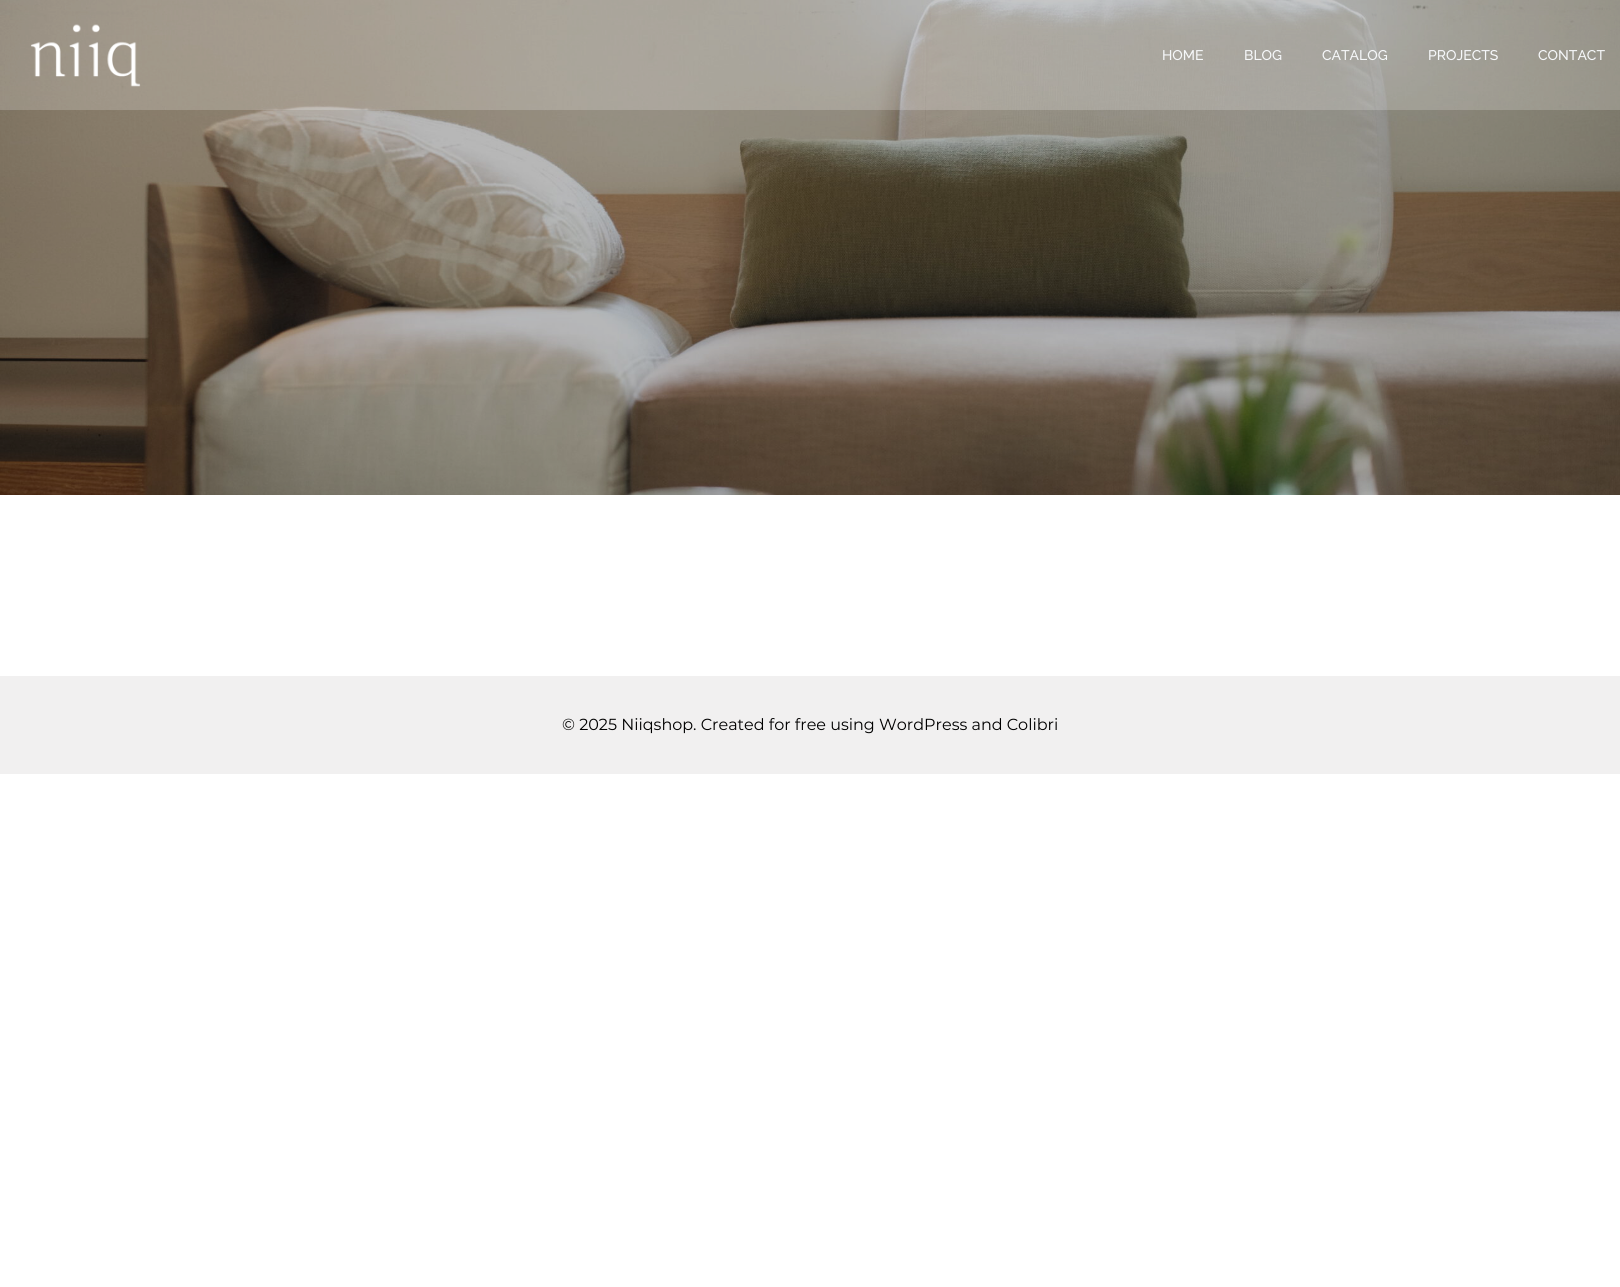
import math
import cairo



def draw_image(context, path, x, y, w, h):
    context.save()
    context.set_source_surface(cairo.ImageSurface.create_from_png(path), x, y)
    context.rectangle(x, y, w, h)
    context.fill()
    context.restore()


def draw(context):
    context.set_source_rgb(1, 1, 1)
    context.paint()
    draw_image(context, "images/1.png", 0, 0, 1620, 495)
    context.set_source_rgba(1, 1, 1, 0.2)
    context.rectangle(0, 0, 1620, 110)
    context.fill()
    draw_image(context, "images/2.png", 30, 24, 111, 63)
    context.set_source_rgb(241 / 255, 240 / 255, 240 / 255)
    context.rectangle(0, 676, 1620, 98)
    context.fill()
    context.select_font_face("Raleway Medium")
    context.set_font_size(14)
    context.set_source_rgb(246 / 255, 248 / 255, 250 / 255)
    context.move_to(1162, 60)
    context.show_text("HOME")
    context.move_to(1244, 60)
    context.show_text("BLOG")
    context.move_to(1322, 60)
    context.show_text("CATALOG")
    context.move_to(1428, 60)
    context.show_text("PROJECTS")
    context.move_to(1538, 60)
    context.show_text("CONTACT")
    context.select_font_face("Montserrat")
    context.set_font_size(16)
    context.set_source_rgb(0, 0, 0)
    context.move_to(562, 730)
    context.show_text("© 2025 Niiqshop. Created for free using WordPress and Colibri")


surface = cairo.ImageSurface(cairo.Format.RGB24, 1620, 1287)
context = cairo.Context(surface)
options = cairo.FontOptions()
options.set_hint_metrics(cairo.HintMetrics.OFF)
options.set_hint_style(cairo.HintStyle.NONE)
context.set_font_options(options)
context.set_miter_limit(4)
draw(context)
surface.write_to_png("out.png")
